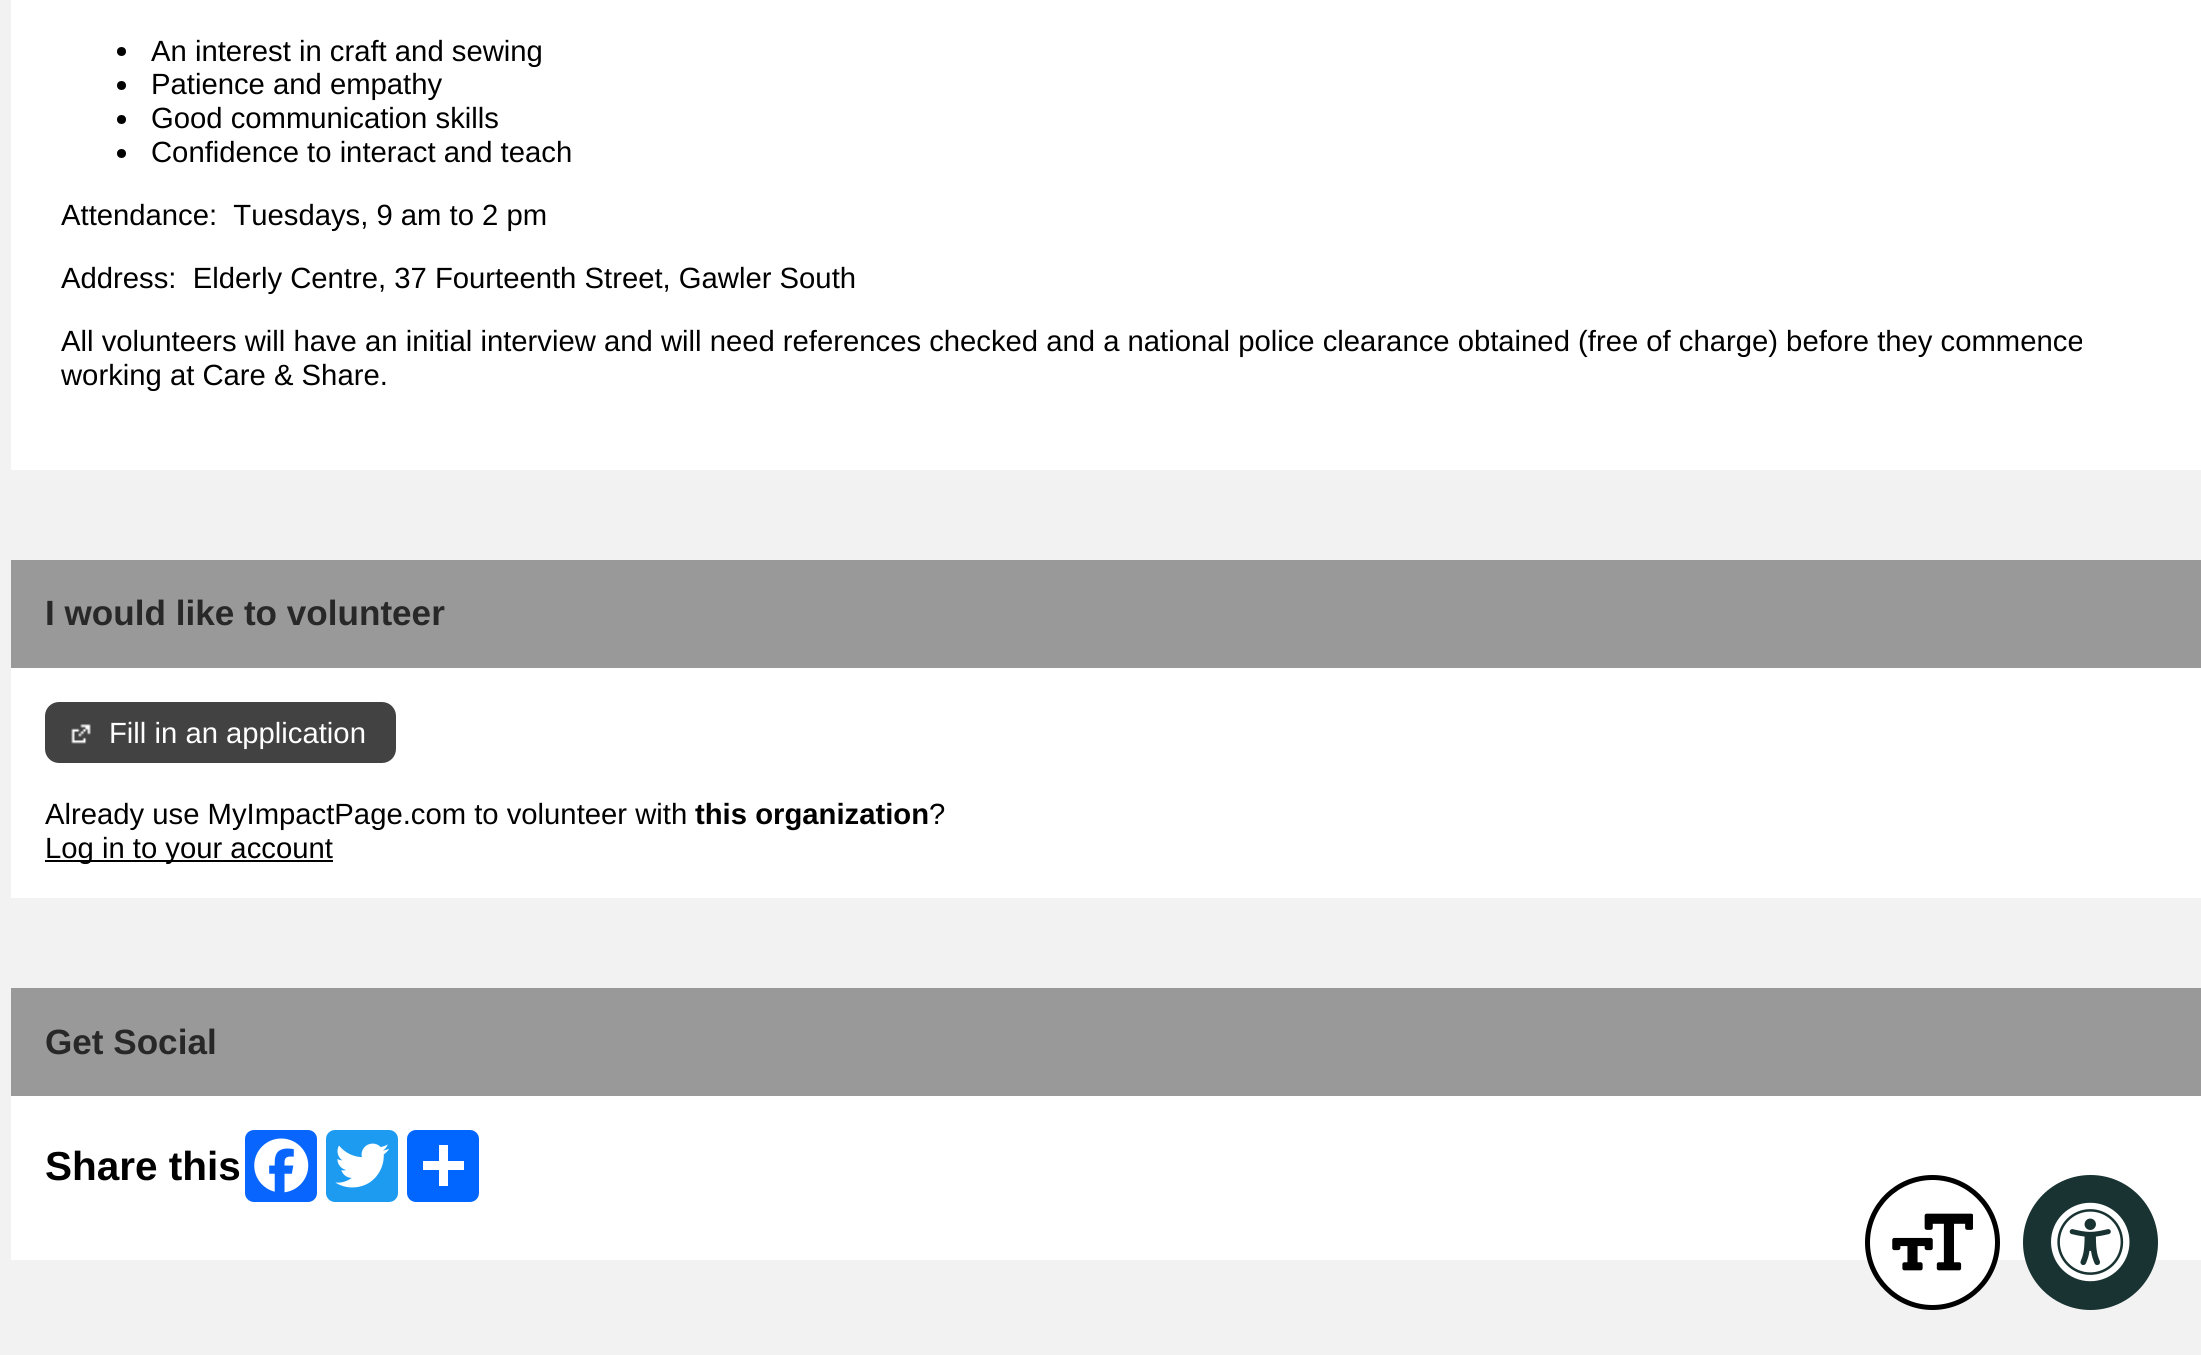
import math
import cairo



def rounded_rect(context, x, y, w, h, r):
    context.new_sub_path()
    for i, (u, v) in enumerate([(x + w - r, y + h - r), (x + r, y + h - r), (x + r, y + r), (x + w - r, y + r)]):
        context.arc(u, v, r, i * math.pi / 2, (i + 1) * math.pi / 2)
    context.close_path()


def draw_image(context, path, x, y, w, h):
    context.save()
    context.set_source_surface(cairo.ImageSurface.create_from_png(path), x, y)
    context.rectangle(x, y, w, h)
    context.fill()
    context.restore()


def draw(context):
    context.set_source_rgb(242 / 255, 242 / 255, 242 / 255)
    context.paint()
    context.set_source_rgb(1, 1, 1)
    context.rectangle(11, 0, 2190, 470)
    context.fill()
    context.set_source_rgb(0, 0, 0)
    context.arc(121.5, 51.5, 4.5, 0, 2 * math.pi)
    context.fill()
    context.arc(121.5, 85.5, 4.5, 0, 2 * math.pi)
    context.fill()
    context.arc(121.5, 119.5, 4.5, 0, 2 * math.pi)
    context.fill()
    context.arc(121.5, 153.5, 4.5, 0, 2 * math.pi)
    context.fill()
    context.set_source_rgb(153 / 255, 153 / 255, 153 / 255)
    context.rectangle(11, 560, 2190, 108)
    context.fill()
    context.set_source_rgb(1, 1, 1)
    context.rectangle(11, 668, 2190, 230)
    context.fill()
    context.set_source_rgb(66 / 255, 66 / 255, 66 / 255)
    rounded_rect(context, 46, 703, 349, 59, 13)
    context.fill_preserve()
    context.stroke()
    draw_image(context, "images/1.png", 71, 724, 20, 20)
    context.set_source_rgb(0, 0, 0)
    context.rectangle(45, 860, 288, 2)
    context.fill()
    context.set_source_rgb(153 / 255, 153 / 255, 153 / 255)
    context.rectangle(11, 988, 2190, 108)
    context.fill()
    context.set_source_rgb(1, 1, 1)
    context.rectangle(11, 1096, 2190, 164)
    context.fill()
    context.set_source_rgb(8 / 255, 102 / 255, 1)
    rounded_rect(context, 245, 1130, 72, 72, 9)
    context.fill()
    draw_image(context, "images/2.png", 254, 1138, 55, 55)
    context.set_source_rgb(29 / 255, 155 / 255, 240 / 255)
    rounded_rect(context, 326, 1130, 72, 72, 9)
    context.fill()
    draw_image(context, "images/3.png", 335, 1143, 55, 45)
    context.set_source_rgb(1 / 255, 102 / 255, 1)
    rounded_rect(context, 407, 1130, 72, 72, 9)
    context.fill()
    context.set_source_rgb(1, 1, 1)
    context.rectangle(439, 1145, 9, 41)
    context.fill()
    context.rectangle(423, 1161, 41, 9)
    context.fill()
    context.arc(1932.5, 1242.5, 65, 0, 2 * math.pi)
    context.fill_preserve()
    context.set_source_rgb(0, 0, 0)
    context.set_line_width(5)
    context.stroke()
    draw_image(context, "images/4.png", 1892, 1213, 81, 58)
    context.set_source_rgb(24 / 255, 51 / 255, 49 / 255)
    context.arc(2090.5, 1242.5, 67.5, 0, 2 * math.pi)
    context.fill()
    draw_image(context, "images/5.png", 2051, 1202, 79, 80)
    context.select_font_face("Liberation Sans")
    context.set_font_size(29.25)
    context.set_source_rgb(0, 0, 0)
    context.move_to(151, 61)
    context.show_text("An interest in craft and sewing")
    context.move_to(151, 94)
    context.show_text("Patience and empathy")
    context.move_to(151, 128)
    context.show_text("Good communication skills")
    context.move_to(151, 162)
    context.show_text("Confidence to interact and teach")
    context.move_to(61, 225)
    context.show_text("Attendance:  Tuesdays, 9 am to 2 pm")
    context.move_to(61, 288)
    context.show_text("Address:  Elderly Centre, 37 Fourteenth Street, Gawler South")
    context.move_to(61, 351)
    context.show_text("All volunteers will have an initial interview and will need references checked and a national police clearance obtained (free of charge) before they commence")
    context.move_to(61, 385)
    context.show_text("working at Care & Share.")
    context.select_font_face("Liberation Sans", cairo.FontSlant.NORMAL, cairo.FontWeight.BOLD)
    context.set_font_size(35.1)
    context.set_source_rgb(40 / 255, 40 / 255, 40 / 255)
    context.move_to(45, 625)
    context.show_text("I would like to volunteer")
    context.select_font_face("Liberation Sans")
    context.set_font_size(29.25)
    context.set_source_rgb(1, 1, 1)
    context.move_to(109, 743)
    context.show_text("Fill in an application")
    context.set_source_rgb(0, 0, 0)
    context.move_to(45, 824)
    context.show_text("Already use MyImpactPage.com to volunteer with")
    context.select_font_face("Liberation Sans", cairo.FontSlant.NORMAL, cairo.FontWeight.BOLD)
    context.move_to(695, 824)
    context.show_text("this organization")
    context.select_font_face("Liberation Sans")
    context.move_to(929, 824)
    context.show_text("?")
    context.move_to(45, 858)
    context.show_text("Log in to your account")
    context.select_font_face("Liberation Sans", cairo.FontSlant.NORMAL, cairo.FontWeight.BOLD)
    context.set_font_size(35.1)
    context.set_source_rgb(40 / 255, 40 / 255, 40 / 255)
    context.move_to(45, 1054)
    context.show_text("Get Social")
    context.set_font_size(40.5)
    context.set_source_rgb(0, 0, 0)
    context.move_to(45, 1180)
    context.show_text("Share this")


surface = cairo.ImageSurface(cairo.Format.RGB24, 2201, 1355)
context = cairo.Context(surface)
options = cairo.FontOptions()
options.set_hint_metrics(cairo.HintMetrics.OFF)
options.set_hint_style(cairo.HintStyle.NONE)
context.set_font_options(options)
context.set_miter_limit(4)
draw(context)
surface.write_to_png("out.png")
